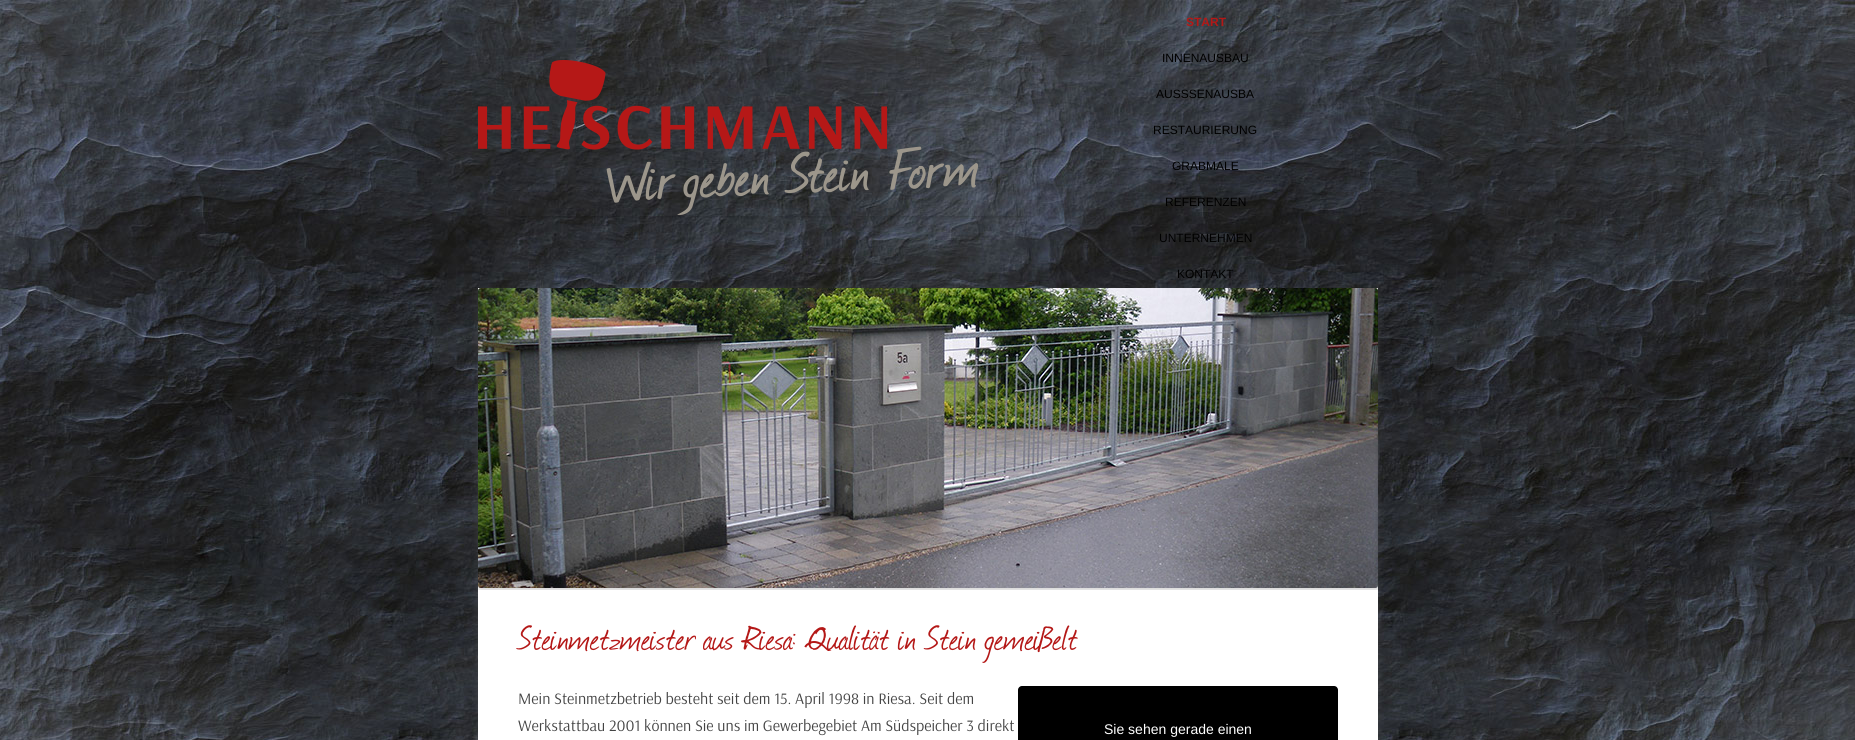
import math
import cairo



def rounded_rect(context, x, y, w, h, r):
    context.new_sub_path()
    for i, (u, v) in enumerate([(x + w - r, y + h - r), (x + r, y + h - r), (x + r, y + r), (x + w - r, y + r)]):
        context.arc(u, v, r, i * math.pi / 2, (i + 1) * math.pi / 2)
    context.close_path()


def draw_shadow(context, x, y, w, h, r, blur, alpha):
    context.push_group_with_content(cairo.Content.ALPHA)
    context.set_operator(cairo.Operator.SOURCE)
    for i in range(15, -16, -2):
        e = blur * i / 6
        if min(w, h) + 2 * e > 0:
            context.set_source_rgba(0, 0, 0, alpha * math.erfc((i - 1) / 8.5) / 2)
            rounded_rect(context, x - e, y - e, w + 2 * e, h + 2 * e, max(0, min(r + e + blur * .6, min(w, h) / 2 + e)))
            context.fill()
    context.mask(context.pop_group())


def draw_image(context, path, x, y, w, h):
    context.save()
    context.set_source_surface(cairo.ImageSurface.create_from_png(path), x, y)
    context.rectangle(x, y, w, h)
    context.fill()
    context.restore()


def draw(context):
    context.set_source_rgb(1, 1, 1)
    context.paint()
    draw_image(context, "images/1.png", 0, 0, 1855, 740)
    context.save()
    context.rectangle(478, 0, 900, 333)
    context.clip()
    context.set_fill_rule(cairo.FillRule.EVEN_ODD)
    context.new_path()
    context.move_to(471, 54)
    context.line_to(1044, 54)
    context.line_to(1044, 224)
    context.line_to(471, 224)
    context.close_path()
    context.move_to(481, 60)
    context.line_to(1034, 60)
    context.curve_to(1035.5, 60, 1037, 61.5, 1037, 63)
    context.line_to(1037, 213)
    context.curve_to(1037, 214.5, 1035.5, 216, 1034, 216)
    context.line_to(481, 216)
    context.curve_to(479.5, 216, 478, 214.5, 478, 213)
    context.line_to(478, 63)
    context.curve_to(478, 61.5, 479.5, 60, 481, 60)
    context.close_path()
    context.clip()
    context.set_source_rgb(0, 0, 0)
    draw_shadow(context, 478, 61, 559, 156, 3, 2, 0.2)
    context.restore()
    draw_image(context, "images/2.png", 478, 60, 500, 155)
    context.set_source_rgb(100 / 255, 100 / 255, 100 / 255)
    draw_shadow(context, 478, 290, 900, 302, 0, 3, 0.3)
    context.set_source_rgb(1, 1, 1)
    context.rectangle(478, 288, 900, 302)
    context.fill()
    context.set_source_rgb(100 / 255, 100 / 255, 100 / 255)
    draw_shadow(context, 478, 592, 900, 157, 0, 3, 0.3)
    context.set_source_rgb(1, 1, 1)
    context.rectangle(478, 590, 900, 150)
    context.fill()
    context.save()
    context.rectangle(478, 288, 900, 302)
    context.clip()
    context.set_source_rgb(0, 0, 0)
    draw_shadow(context, 478, 289, 900, 300, 3, 2, 0.2)
    context.restore()
    draw_image(context, "images/3.png", 478, 288, 900, 300)
    context.save()
    context.rectangle(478, 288, 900, 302)
    context.clip()
    context.set_source_rgb(0, 0, 0)
    draw_shadow(context, 1378, 289, 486, 300, 3, 2, 0.2)
    context.restore()
    context.set_source_rgb(0, 0, 0)
    rounded_rect(context, 1018, 686, 320, 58, 4)
    context.fill()
    context.select_font_face("Liberation Sans", cairo.FontSlant.NORMAL, cairo.FontWeight.BOLD)
    context.set_font_size(12)
    context.set_source_rgb(180 / 255, 24 / 255, 23 / 255)
    context.move_to(1186, 26)
    context.show_text("START")
    context.select_font_face("Liberation Sans")
    context.set_source_rgb(0, 0, 0)
    context.move_to(1162, 62)
    context.show_text("INNENAUSBAU")
    context.move_to(1156, 98)
    context.show_text("AUSSSENAUSBA")
    context.move_to(1153, 134)
    context.show_text("RESTAURIERUNG")
    context.move_to(1172, 170)
    context.show_text("GRABMALE")
    context.move_to(1165, 206)
    context.show_text("REFERENZEN")
    context.move_to(1159, 242)
    context.show_text("UNTERNEHMEN")
    context.move_to(1177, 278)
    context.show_text("KONTAKT")
    context.select_font_face("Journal")
    context.set_font_size(40)
    context.set_source_rgb(180 / 255, 24 / 255, 23 / 255)
    context.move_to(518, 649)
    context.show_text("Steinmetzmeister aus Riesa: Qualität in Stein gemeißelt")
    context.select_font_face("Arsenal")
    context.set_font_size(16)
    context.set_source_rgb(68 / 255, 68 / 255, 68 / 255)
    context.move_to(518, 704)
    context.show_text("Mein Steinmetzbetrieb besteht seit dem 15. April 1998 in Riesa. Seit dem")
    context.move_to(518, 731)
    context.show_text("Werkstattbau 2001 können Sie uns im Gewerbegebiet Am Südspeicher 3 direkt")
    context.select_font_face("Liberation Sans")
    context.set_font_size(14)
    context.set_source_rgb(1, 1, 1)
    context.move_to(1104, 734)
    context.show_text("Sie sehen gerade einen")


surface = cairo.ImageSurface(cairo.Format.RGB24, 1855, 740)
context = cairo.Context(surface)
options = cairo.FontOptions()
options.set_hint_metrics(cairo.HintMetrics.OFF)
options.set_hint_style(cairo.HintStyle.NONE)
context.set_font_options(options)
context.set_miter_limit(4)
draw(context)
surface.write_to_png("out.png")
